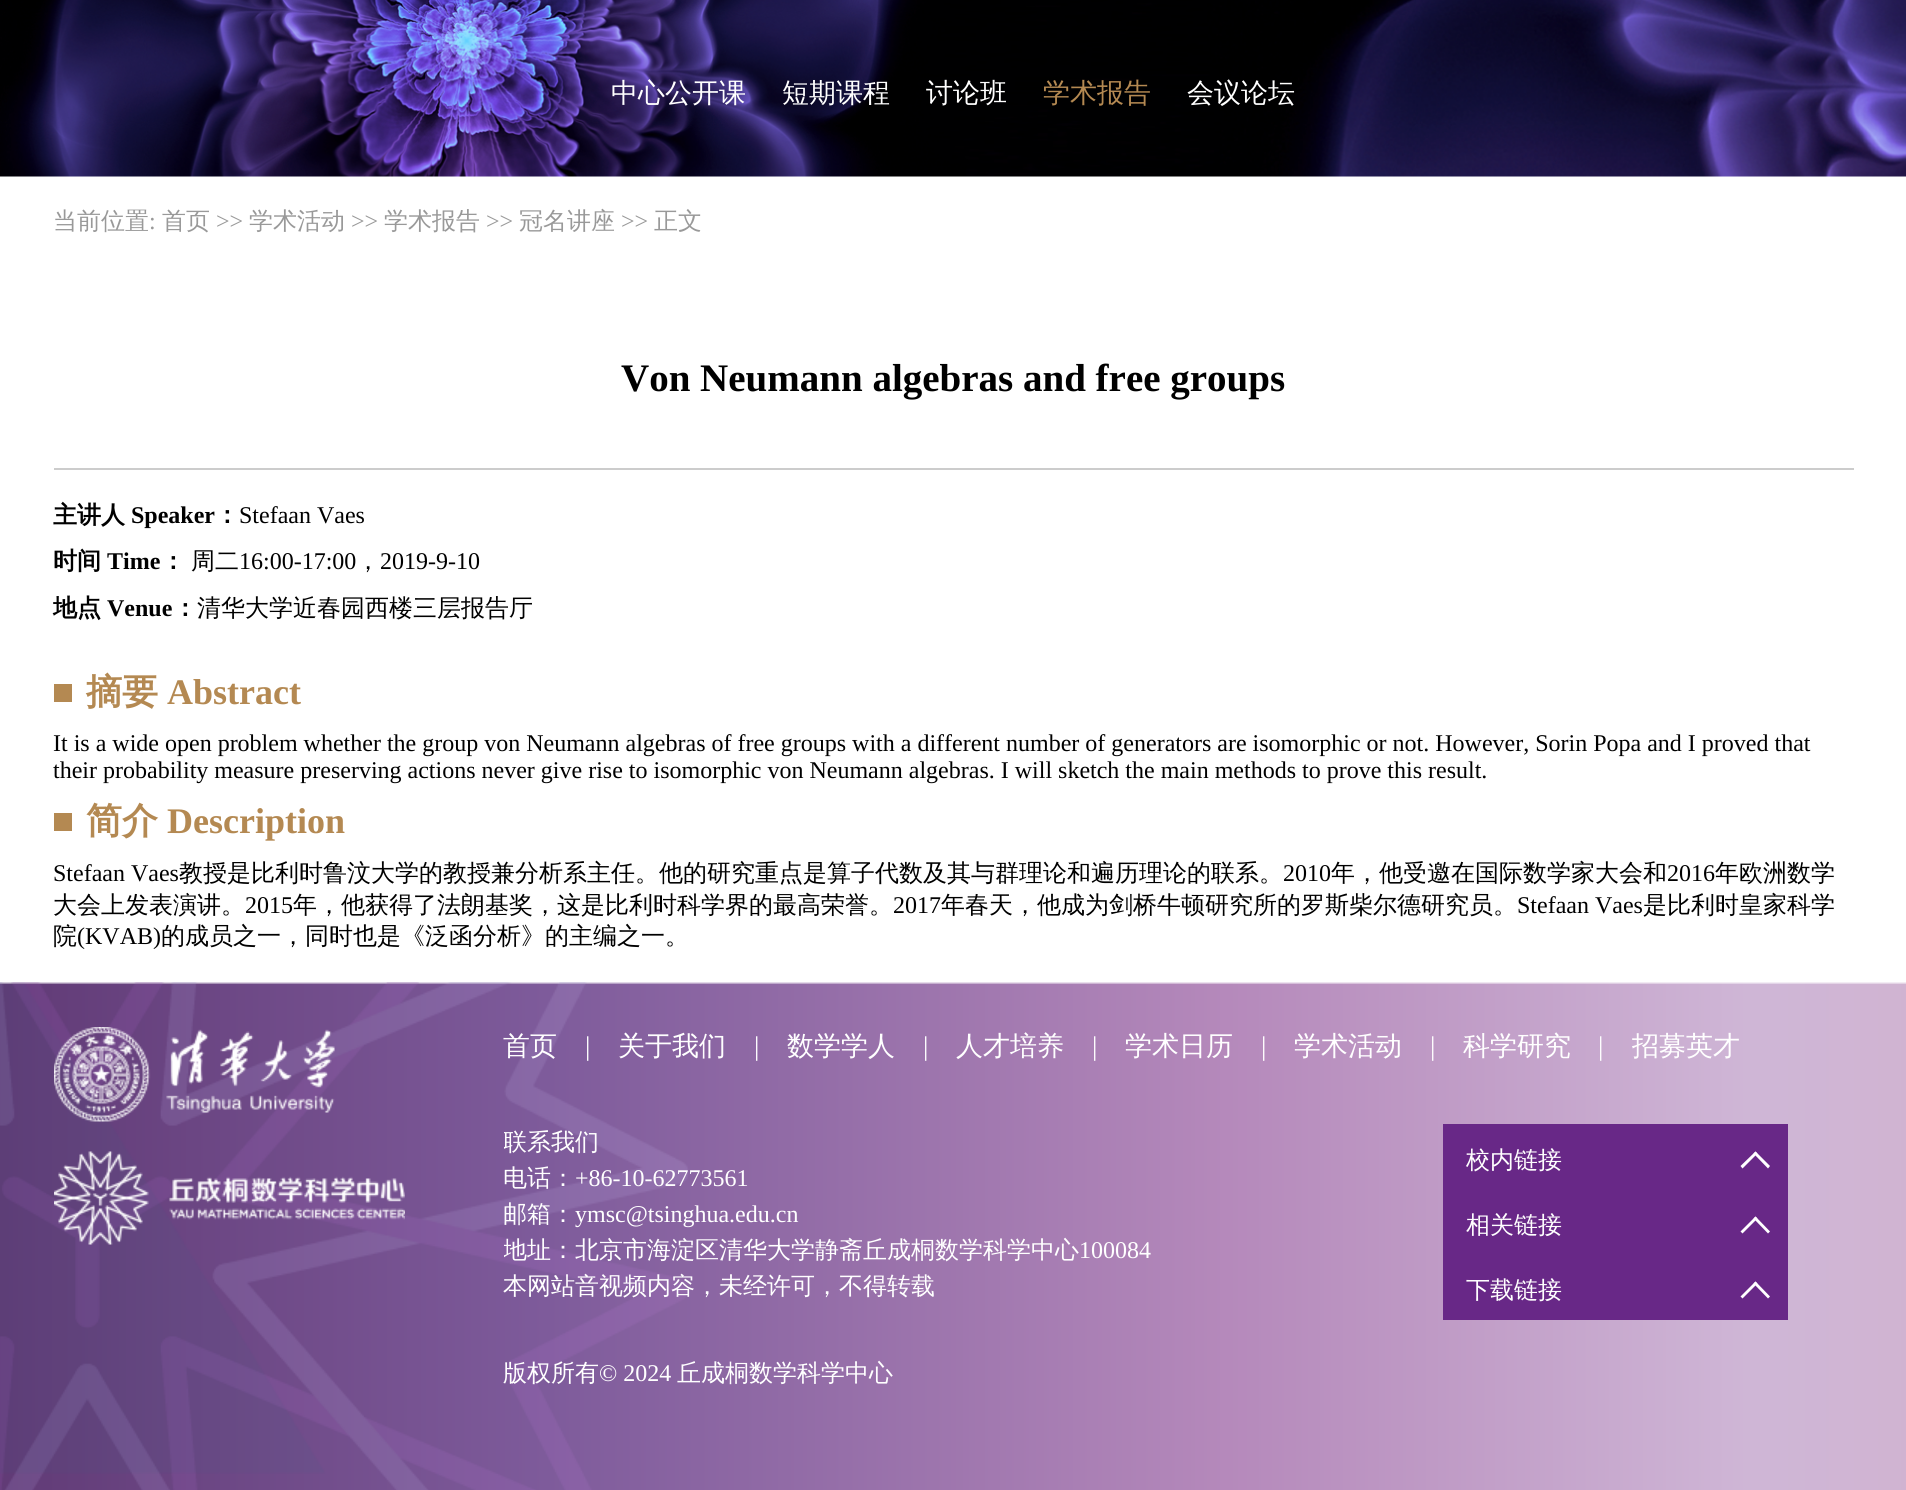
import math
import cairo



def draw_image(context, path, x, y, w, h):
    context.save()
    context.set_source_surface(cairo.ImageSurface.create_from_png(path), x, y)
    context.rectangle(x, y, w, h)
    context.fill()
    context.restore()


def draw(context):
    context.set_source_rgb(1, 1, 1)
    context.paint()
    draw_image(context, "images/1.png", 0, 0, 1906, 177)
    context.set_source_rgb(204 / 255, 204 / 255, 204 / 255)
    context.rectangle(54, 468, 1800, 2)
    context.fill()
    context.set_source_rgb(180 / 255, 137 / 255, 82 / 255)
    context.rectangle(54, 684, 18, 18)
    context.fill()
    context.rectangle(54, 813, 18, 18)
    context.fill()
    draw_image(context, "images/2.png", 0, 982, 1906, 508)
    draw_image(context, "images/3.png", 54, 1027, 281, 95)
    draw_image(context, "images/4.png", 54, 1151, 351, 94)
    context.set_source_rgb(104 / 255, 40 / 255, 135 / 255)
    context.rectangle(1443, 1124, 345, 196)
    context.fill()
    context.set_source_rgb(1, 1, 1)
    context.new_path()
    context.move_to(1755.5, 1151.5)
    context.line_to(1770, 1166)
    context.line_to(1768, 1168.5)
    context.line_to(1753.5, 1153.5)
    context.close_path()
    context.fill()
    context.new_path()
    context.move_to(1755.5, 1151.5)
    context.line_to(1757.5, 1153.5)
    context.line_to(1742.5, 1168.5)
    context.line_to(1740.5, 1166)
    context.close_path()
    context.fill()
    context.new_path()
    context.move_to(1755.5, 1216.5)
    context.line_to(1770, 1231.5)
    context.line_to(1768, 1233.5)
    context.line_to(1753.5, 1218.5)
    context.close_path()
    context.fill()
    context.new_path()
    context.move_to(1755.5, 1216.5)
    context.line_to(1757.5, 1218.5)
    context.line_to(1742.5, 1233.5)
    context.line_to(1740.5, 1231.5)
    context.close_path()
    context.fill()
    context.new_path()
    context.move_to(1755.5, 1281.5)
    context.line_to(1770, 1296.5)
    context.line_to(1768, 1298.5)
    context.line_to(1753.5, 1283.5)
    context.close_path()
    context.fill()
    context.new_path()
    context.move_to(1755.5, 1281.5)
    context.line_to(1757.5, 1283.5)
    context.line_to(1742.5, 1298.5)
    context.line_to(1740.5, 1296.5)
    context.close_path()
    context.fill()
    context.select_font_face("WenQuanYi Zen Hei Medium")
    context.set_font_size(27)
    context.move_to(611, 102)
    context.show_text("中心公开课")
    context.move_to(782, 102)
    context.show_text("短期课程")
    context.move_to(926, 102)
    context.show_text("讨论班")
    context.set_source_rgb(180 / 255, 137 / 255, 82 / 255)
    context.move_to(1043, 102)
    context.show_text("学术报告")
    context.set_source_rgb(1, 1, 1)
    context.move_to(1187, 102)
    context.show_text("会议论坛")
    context.set_font_size(24)
    context.set_source_rgb(153 / 255, 153 / 255, 153 / 255)
    context.move_to(53, 229)
    context.show_text("当前位置")
    context.select_font_face("Liberation Serif")
    context.move_to(149, 229)
    context.show_text(":")
    context.select_font_face("WenQuanYi Zen Hei Medium")
    context.move_to(162, 229)
    context.show_text("首页")
    context.select_font_face("Liberation Serif")
    context.move_to(216, 229)
    context.show_text(">>")
    context.select_font_face("WenQuanYi Zen Hei Medium")
    context.move_to(249, 229)
    context.show_text("学术活动")
    context.select_font_face("Liberation Serif")
    context.move_to(351, 229)
    context.show_text(">>")
    context.select_font_face("WenQuanYi Zen Hei Medium")
    context.move_to(384, 229)
    context.show_text("学术报告")
    context.select_font_face("Liberation Serif")
    context.move_to(486, 229)
    context.show_text(">>")
    context.select_font_face("WenQuanYi Zen Hei Medium")
    context.move_to(519, 229)
    context.show_text("冠名讲座")
    context.select_font_face("Liberation Serif")
    context.move_to(621, 229)
    context.show_text(">>")
    context.select_font_face("WenQuanYi Zen Hei Medium")
    context.move_to(654, 229)
    context.show_text("正文")
    context.select_font_face("Liberation Serif", cairo.FontSlant.NORMAL, cairo.FontWeight.BOLD)
    context.set_font_size(39)
    context.set_source_rgb(0, 0, 0)
    context.move_to(621, 391)
    context.show_text("Von Neumann algebras and free groups")
    context.select_font_face("WenQuanYi Zen Hei", cairo.FontSlant.NORMAL, cairo.FontWeight.BOLD)
    context.set_font_size(24)
    context.move_to(53, 523)
    context.show_text("主讲人")
    context.select_font_face("Liberation Serif", cairo.FontSlant.NORMAL, cairo.FontWeight.BOLD)
    context.move_to(131, 523)
    context.show_text("Speaker")
    context.select_font_face("WenQuanYi Zen Hei", cairo.FontSlant.NORMAL, cairo.FontWeight.BOLD)
    context.move_to(215, 523)
    context.show_text("：")
    context.select_font_face("Liberation Serif")
    context.move_to(239, 523)
    context.show_text("Stefaan Vaes")
    context.select_font_face("WenQuanYi Zen Hei", cairo.FontSlant.NORMAL, cairo.FontWeight.BOLD)
    context.move_to(53, 569)
    context.show_text("时间")
    context.select_font_face("Liberation Serif", cairo.FontSlant.NORMAL, cairo.FontWeight.BOLD)
    context.move_to(107, 569)
    context.show_text("Time")
    context.select_font_face("WenQuanYi Zen Hei", cairo.FontSlant.NORMAL, cairo.FontWeight.BOLD)
    context.move_to(161, 569)
    context.show_text("：")
    context.select_font_face("WenQuanYi Zen Hei Medium")
    context.move_to(191, 569)
    context.show_text("周二")
    context.select_font_face("Liberation Serif")
    context.move_to(239, 569)
    context.show_text("16:00-17:00")
    context.select_font_face("WenQuanYi Zen Hei Medium")
    context.move_to(356, 569)
    context.show_text("，")
    context.select_font_face("Liberation Serif")
    context.move_to(380, 569)
    context.show_text("2019-9-10")
    context.select_font_face("WenQuanYi Zen Hei", cairo.FontSlant.NORMAL, cairo.FontWeight.BOLD)
    context.move_to(53, 616)
    context.show_text("地点")
    context.select_font_face("Liberation Serif", cairo.FontSlant.NORMAL, cairo.FontWeight.BOLD)
    context.move_to(107, 616)
    context.show_text("Venue")
    context.select_font_face("WenQuanYi Zen Hei", cairo.FontSlant.NORMAL, cairo.FontWeight.BOLD)
    context.move_to(173, 616)
    context.show_text("：")
    context.select_font_face("WenQuanYi Zen Hei Medium")
    context.move_to(197, 616)
    context.show_text("清华大学近春园西楼三层报告厅")
    context.select_font_face("WenQuanYi Zen Hei", cairo.FontSlant.NORMAL, cairo.FontWeight.BOLD)
    context.set_font_size(36)
    context.set_source_rgb(180 / 255, 137 / 255, 82 / 255)
    context.move_to(86, 704)
    context.show_text("摘要")
    context.select_font_face("Liberation Serif", cairo.FontSlant.NORMAL, cairo.FontWeight.BOLD)
    context.move_to(167, 704)
    context.show_text("Abstract")
    context.select_font_face("Liberation Serif")
    context.set_font_size(24)
    context.set_source_rgb(0, 0, 0)
    context.move_to(53, 751)
    context.show_text("It is a wide open problem whether the group von Neumann algebras of free groups with a different number of generators are isomorphic or not. However, Sorin Popa and I proved that")
    context.move_to(53, 778)
    context.show_text("their probability measure preserving actions never give rise to isomorphic von Neumann algebras. I will sketch the main methods to prove this result.")
    context.select_font_face("WenQuanYi Zen Hei", cairo.FontSlant.NORMAL, cairo.FontWeight.BOLD)
    context.set_font_size(36)
    context.set_source_rgb(180 / 255, 137 / 255, 82 / 255)
    context.move_to(86, 833)
    context.show_text("简介")
    context.select_font_face("Liberation Serif", cairo.FontSlant.NORMAL, cairo.FontWeight.BOLD)
    context.move_to(167, 833)
    context.show_text("Description")
    context.select_font_face("Liberation Serif")
    context.set_font_size(24)
    context.set_source_rgb(0, 0, 0)
    context.move_to(53, 881)
    context.show_text("Stefaan Vaes")
    context.select_font_face("WenQuanYi Zen Hei Medium")
    context.move_to(179, 881)
    context.show_text("教授是比利时鲁汶大学的教授兼分析系主任。他的研究重点是算子代数及其与群理论和遍历理论的联系。")
    context.select_font_face("Liberation Serif")
    context.move_to(1283, 881)
    context.show_text("2010")
    context.select_font_face("WenQuanYi Zen Hei Medium")
    context.move_to(1331, 881)
    context.show_text("年，他受邀在国际数学家大会和")
    context.select_font_face("Liberation Serif")
    context.move_to(1667, 881)
    context.show_text("2016")
    context.select_font_face("WenQuanYi Zen Hei Medium")
    context.move_to(1715, 881)
    context.show_text("年欧洲数学")
    context.move_to(53, 913)
    context.show_text("大会上发表演讲。")
    context.select_font_face("Liberation Serif")
    context.move_to(245, 913)
    context.show_text("2015")
    context.select_font_face("WenQuanYi Zen Hei Medium")
    context.move_to(293, 913)
    context.show_text("年，他获得了法朗基奖，这是比利时科学界的最高荣誉。")
    context.select_font_face("Liberation Serif")
    context.move_to(893, 913)
    context.show_text("2017")
    context.select_font_face("WenQuanYi Zen Hei Medium")
    context.move_to(941, 913)
    context.show_text("年春天，他成为剑桥牛顿研究所的罗斯柴尔德研究员。")
    context.select_font_face("Liberation Serif")
    context.move_to(1517, 913)
    context.show_text("Stefaan Vaes")
    context.select_font_face("WenQuanYi Zen Hei Medium")
    context.move_to(1643, 913)
    context.show_text("是比利时皇家科学")
    context.move_to(53, 944)
    context.show_text("院")
    context.select_font_face("Liberation Serif")
    context.move_to(77, 944)
    context.show_text("(KVAB)")
    context.select_font_face("WenQuanYi Zen Hei Medium")
    context.move_to(161, 944)
    context.show_text("的成员之一，同时也是《泛函分析》的主编之一。")
    context.set_font_size(27)
    context.set_source_rgb(1, 1, 1)
    context.move_to(503, 1055)
    context.show_text("首页")
    context.select_font_face("Liberation Serif")
    context.move_to(585, 1055)
    context.show_text("|")
    context.select_font_face("WenQuanYi Zen Hei Medium")
    context.move_to(618, 1055)
    context.show_text("关于我们")
    context.select_font_face("Liberation Serif")
    context.move_to(754, 1055)
    context.show_text("|")
    context.select_font_face("WenQuanYi Zen Hei Medium")
    context.move_to(787, 1055)
    context.show_text("数学学人")
    context.select_font_face("Liberation Serif")
    context.move_to(923, 1055)
    context.show_text("|")
    context.select_font_face("WenQuanYi Zen Hei Medium")
    context.move_to(956, 1055)
    context.show_text("人才培养")
    context.select_font_face("Liberation Serif")
    context.move_to(1092, 1055)
    context.show_text("|")
    context.select_font_face("WenQuanYi Zen Hei Medium")
    context.move_to(1125, 1055)
    context.show_text("学术日历")
    context.select_font_face("Liberation Serif")
    context.move_to(1261, 1055)
    context.show_text("|")
    context.select_font_face("WenQuanYi Zen Hei Medium")
    context.move_to(1294, 1055)
    context.show_text("学术活动")
    context.select_font_face("Liberation Serif")
    context.move_to(1430, 1055)
    context.show_text("|")
    context.select_font_face("WenQuanYi Zen Hei Medium")
    context.move_to(1463, 1055)
    context.show_text("科学研究")
    context.select_font_face("Liberation Serif")
    context.move_to(1598, 1055)
    context.show_text("|")
    context.select_font_face("WenQuanYi Zen Hei Medium")
    context.move_to(1632, 1055)
    context.show_text("招募英才")
    context.save()
    context.rectangle(504, 1124, 648, 36)
    context.clip()
    context.set_font_size(24)
    context.move_to(503, 1150)
    context.show_text("联系我们")
    context.restore()
    context.set_font_size(24)
    context.move_to(503, 1186)
    context.show_text("电话：")
    context.select_font_face("Liberation Serif")
    context.move_to(575, 1186)
    context.show_text("+86-10-62773561")
    context.select_font_face("WenQuanYi Zen Hei Medium")
    context.move_to(503, 1222)
    context.show_text("邮箱：")
    context.select_font_face("Liberation Serif")
    context.move_to(575, 1222)
    context.show_text("ymsc@tsinghua.edu.cn")
    context.save()
    context.rectangle(504, 1232, 648, 36)
    context.clip()
    context.select_font_face("WenQuanYi Zen Hei Medium")
    context.move_to(503, 1258)
    context.show_text("地址：北京市海淀区清华大学静斋丘成桐数学科学中心")
    context.restore()
    context.move_to(1079, 1258)
    context.show_text("100084")
    context.select_font_face("WenQuanYi Zen Hei Medium")
    context.move_to(503, 1294)
    context.show_text("本网站音视频内容，未经许可，不得转载")
    context.move_to(503, 1381)
    context.show_text("版权所有")
    context.select_font_face("Liberation Serif")
    context.move_to(599, 1381)
    context.show_text("© 2024")
    context.select_font_face("WenQuanYi Zen Hei Medium")
    context.move_to(677, 1381)
    context.show_text("丘成桐数学科学中心")
    context.move_to(1466, 1168)
    context.show_text("校内链接")
    context.move_to(1466, 1233)
    context.show_text("相关链接")
    context.move_to(1466, 1298)
    context.show_text("下载链接")


surface = cairo.ImageSurface(cairo.Format.RGB24, 1906, 1490)
context = cairo.Context(surface)
options = cairo.FontOptions()
options.set_hint_metrics(cairo.HintMetrics.OFF)
options.set_hint_style(cairo.HintStyle.NONE)
context.set_font_options(options)
context.set_miter_limit(4)
draw(context)
surface.write_to_png("out.png")
